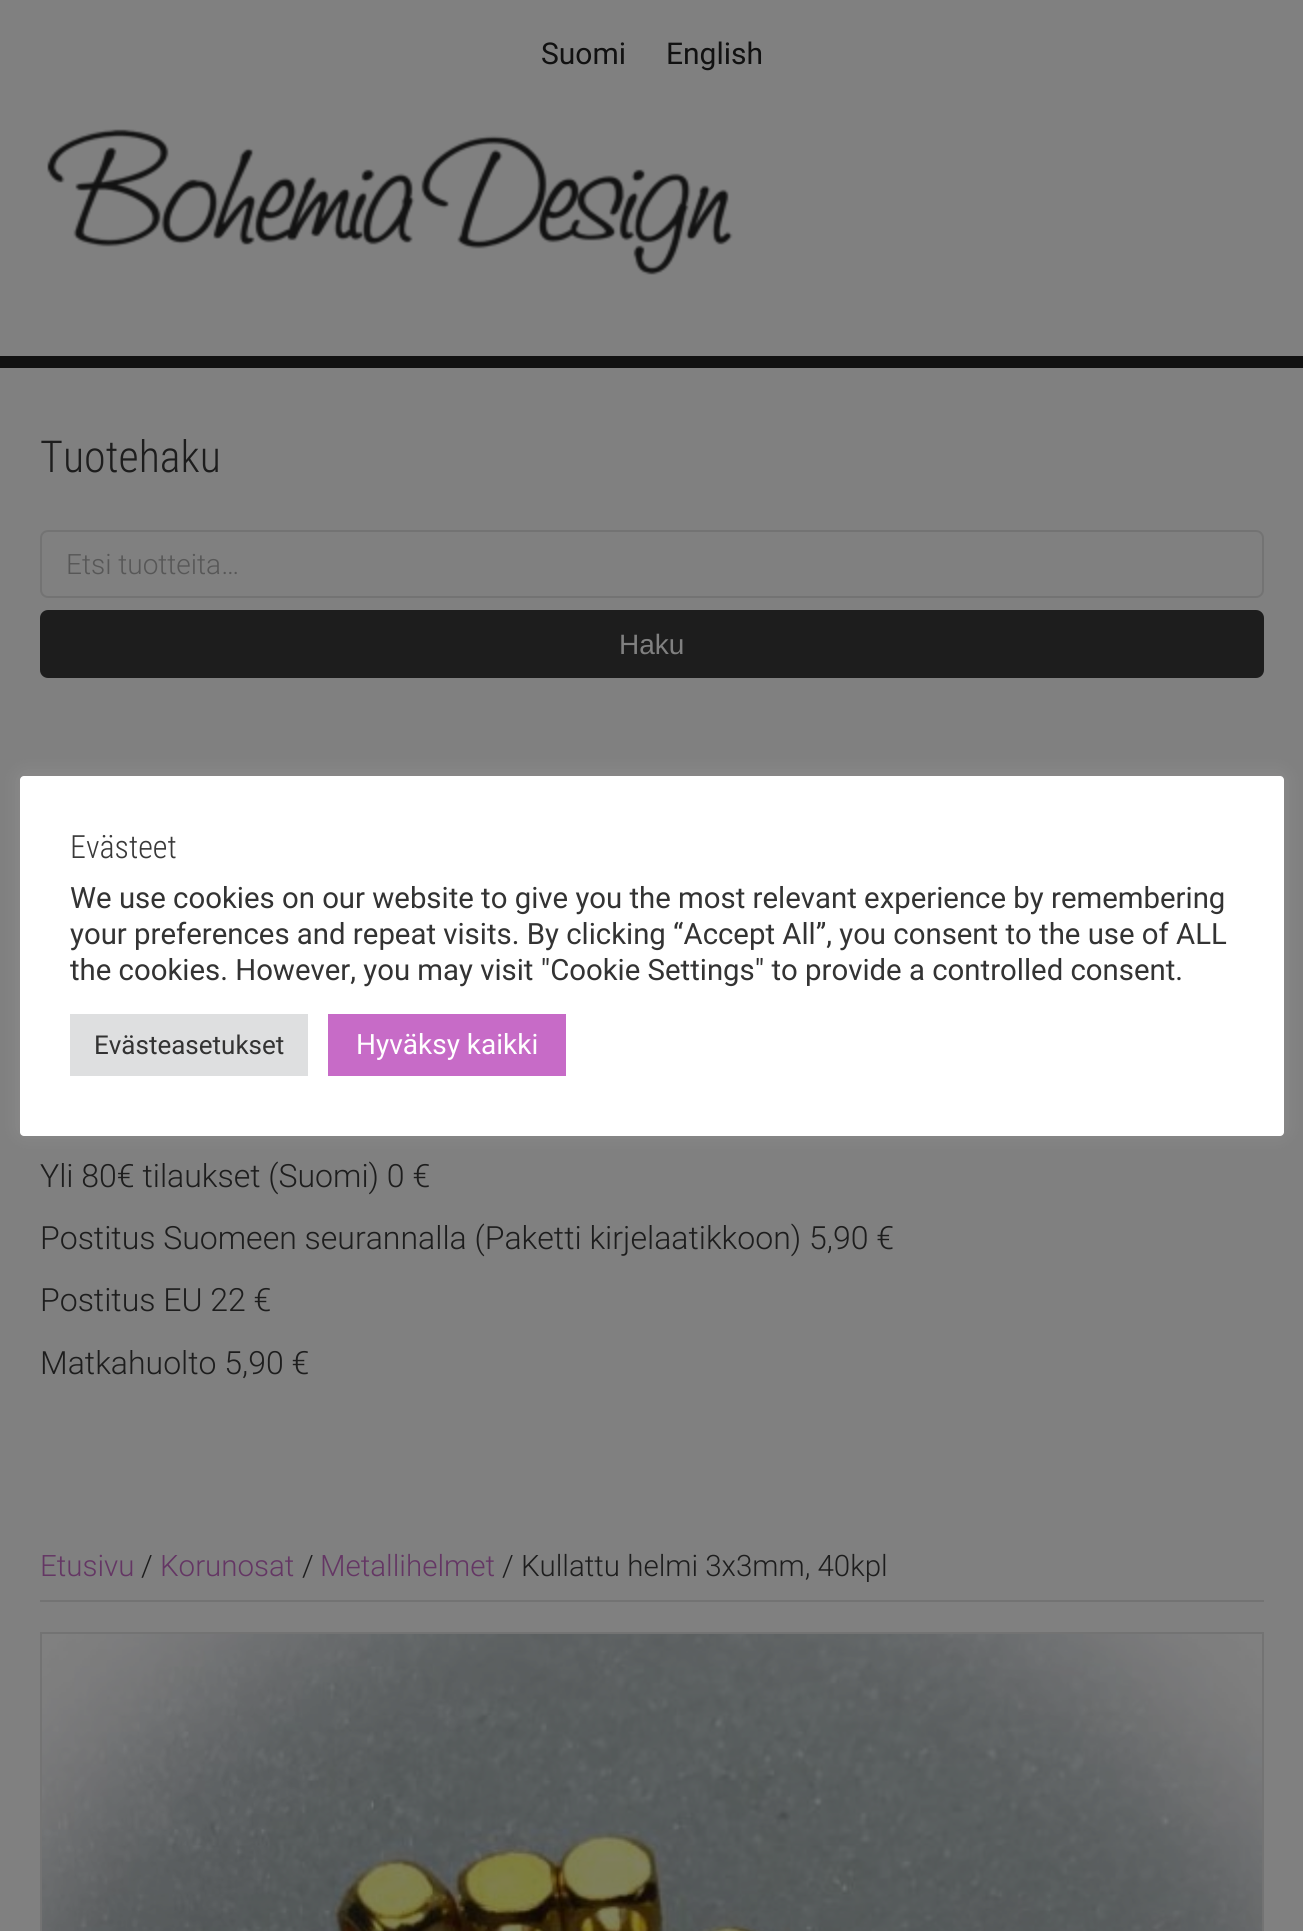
import math
import cairo



def rounded_rect(context, x, y, w, h, r):
    context.new_sub_path()
    for i, (u, v) in enumerate([(x + w - r, y + h - r), (x + r, y + h - r), (x + r, y + r), (x + w - r, y + r)]):
        context.arc(u, v, r, i * math.pi / 2, (i + 1) * math.pi / 2)
    context.close_path()


def draw_shadow(context, x, y, w, h, r, blur, alpha):
    context.push_group_with_content(cairo.Content.ALPHA)
    context.set_operator(cairo.Operator.SOURCE)
    for i in range(15, -16, -2):
        e = blur * i / 6
        if min(w, h) + 2 * e > 0:
            context.set_source_rgba(0, 0, 0, alpha * math.erfc((i - 1) / 8.5) / 2)
            rounded_rect(context, x - e, y - e, w + 2 * e, h + 2 * e, max(0, min(r + e + blur * .6, min(w, h) / 2 + e)))
            context.fill()
    context.mask(context.pop_group())


def draw_image(context, path, x, y, w, h):
    context.save()
    context.set_source_surface(cairo.ImageSurface.create_from_png(path), x, y)
    context.rectangle(x, y, w, h)
    context.fill()
    context.restore()


def draw(context):
    context.set_source_rgb(128 / 255, 128 / 255, 128 / 255)
    context.paint()
    context.set_source_rgb(17 / 255, 17 / 255, 17 / 255)
    context.rectangle(0, 356, 1303, 12)
    context.fill()
    draw_image(context, "images/1.png", 47, 129, 686, 146)
    rounded_rect(context, 41, 531, 1222, 66, 7)
    context.set_source_rgb(115 / 255, 115 / 255, 115 / 255)
    context.stroke()
    context.set_source_rgb(29 / 255, 29 / 255, 29 / 255)
    rounded_rect(context, 40, 610, 1224, 68, 8)
    context.fill()
    context.set_source_rgb(115 / 255, 115 / 255, 115 / 255)
    context.rectangle(40, 1600, 1224, 2)
    context.fill()
    context.rectangle(41, 1633, 1222, 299)
    context.stroke()
    draw_image(context, "images/2.png", 42, 1634, 1220, 297)
    context.set_source_rgb(172 / 255, 171 / 255, 171 / 255)
    draw_shadow(context, 20, 774, 1264, 360, 4, 10, 0.3)
    context.set_source_rgb(1, 1, 1)
    rounded_rect(context, 20, 776, 1264, 360, 4)
    context.fill()
    context.set_source_rgb(222 / 255, 223 / 255, 224 / 255)
    context.rectangle(70, 1014, 238, 62)
    context.fill()
    context.set_source_rgb(199 / 255, 107 / 255, 199 / 255)
    context.rectangle(328, 1014, 238, 62)
    context.fill()
    context.select_font_face("Roboto")
    context.set_font_size(30)
    context.set_source_rgb(17 / 255, 17 / 255, 17 / 255)
    context.move_to(541, 64)
    context.show_text("Suomi")
    context.move_to(666, 64)
    context.show_text("English")
    context.select_font_face("Roboto Condensed Light")
    context.set_font_size(44)
    context.set_source_rgb(29 / 255, 29 / 255, 29 / 255)
    context.move_to(40, 472)
    context.show_text("Tuotehaku")
    context.select_font_face("Roboto Light")
    context.set_font_size(28)
    context.set_source_rgb(87 / 255, 87 / 255, 87 / 255)
    context.move_to(66, 574)
    context.show_text("Etsi tuotteita…")
    context.select_font_face("Liberation Sans")
    context.set_source_rgb(128 / 255, 128 / 255, 128 / 255)
    context.move_to(619, 654)
    context.show_text("Haku")
    context.select_font_face("Roboto Light")
    context.set_font_size(32)
    context.set_source_rgb(29 / 255, 29 / 255, 29 / 255)
    context.move_to(40, 1187)
    context.show_text("Yli 80€ tilaukset (Suomi) 0 €")
    context.move_to(40, 1249)
    context.show_text("Postitus Suomeen seurannalla (Paketti kirjelaatikkoon) 5,90 €")
    context.move_to(40, 1311)
    context.show_text("Postitus EU 22 €")
    context.move_to(40, 1374)
    context.show_text("Matkahuolto 5,90 €")
    context.set_font_size(29.5)
    context.set_source_rgb(100 / 255, 54 / 255, 100 / 255)
    context.move_to(40, 1576)
    context.show_text("Etusivu")
    context.set_source_rgb(29 / 255, 29 / 255, 29 / 255)
    context.move_to(141, 1576)
    context.show_text("/")
    context.set_source_rgb(100 / 255, 54 / 255, 100 / 255)
    context.move_to(160, 1576)
    context.show_text("Korunosat")
    context.set_source_rgb(29 / 255, 29 / 255, 29 / 255)
    context.move_to(302, 1576)
    context.show_text("/")
    context.set_source_rgb(100 / 255, 54 / 255, 100 / 255)
    context.move_to(320, 1576)
    context.show_text("Metallihelmet")
    context.set_source_rgb(29 / 255, 29 / 255, 29 / 255)
    context.move_to(502, 1576)
    context.show_text("/ Kullattu helmi 3x3mm, 40kpl")
    context.select_font_face("Roboto Condensed Light")
    context.set_font_size(32)
    context.set_source_rgb(57 / 255, 57 / 255, 57 / 255)
    context.move_to(70, 858)
    context.show_text("Evästeet")
    context.select_font_face("Roboto")
    context.set_font_size(29.35)
    context.set_source_rgb(51 / 255, 51 / 255, 51 / 255)
    context.move_to(70, 908)
    context.show_text("We use cookies on our website to give you the most relevant experience by remembering")
    context.move_to(70, 944)
    context.show_text("your preferences and repeat visits. By clicking “Accept All”, you consent to the use of ALL")
    context.move_to(70, 980)
    context.show_text("the cookies. However, you may visit \"Cookie Settings\" to provide a controlled consent.")
    context.set_font_size(26)
    context.move_to(94, 1054)
    context.show_text("Evästeasetukset")
    context.set_font_size(28)
    context.set_source_rgb(1, 1, 1)
    context.move_to(356, 1054)
    context.show_text("Hyväksy kaikki")


surface = cairo.ImageSurface(cairo.Format.RGB24, 1303, 1931)
context = cairo.Context(surface)
options = cairo.FontOptions()
options.set_hint_metrics(cairo.HintMetrics.OFF)
options.set_hint_style(cairo.HintStyle.NONE)
context.set_font_options(options)
context.set_miter_limit(4)
draw(context)
surface.write_to_png("out.png")
